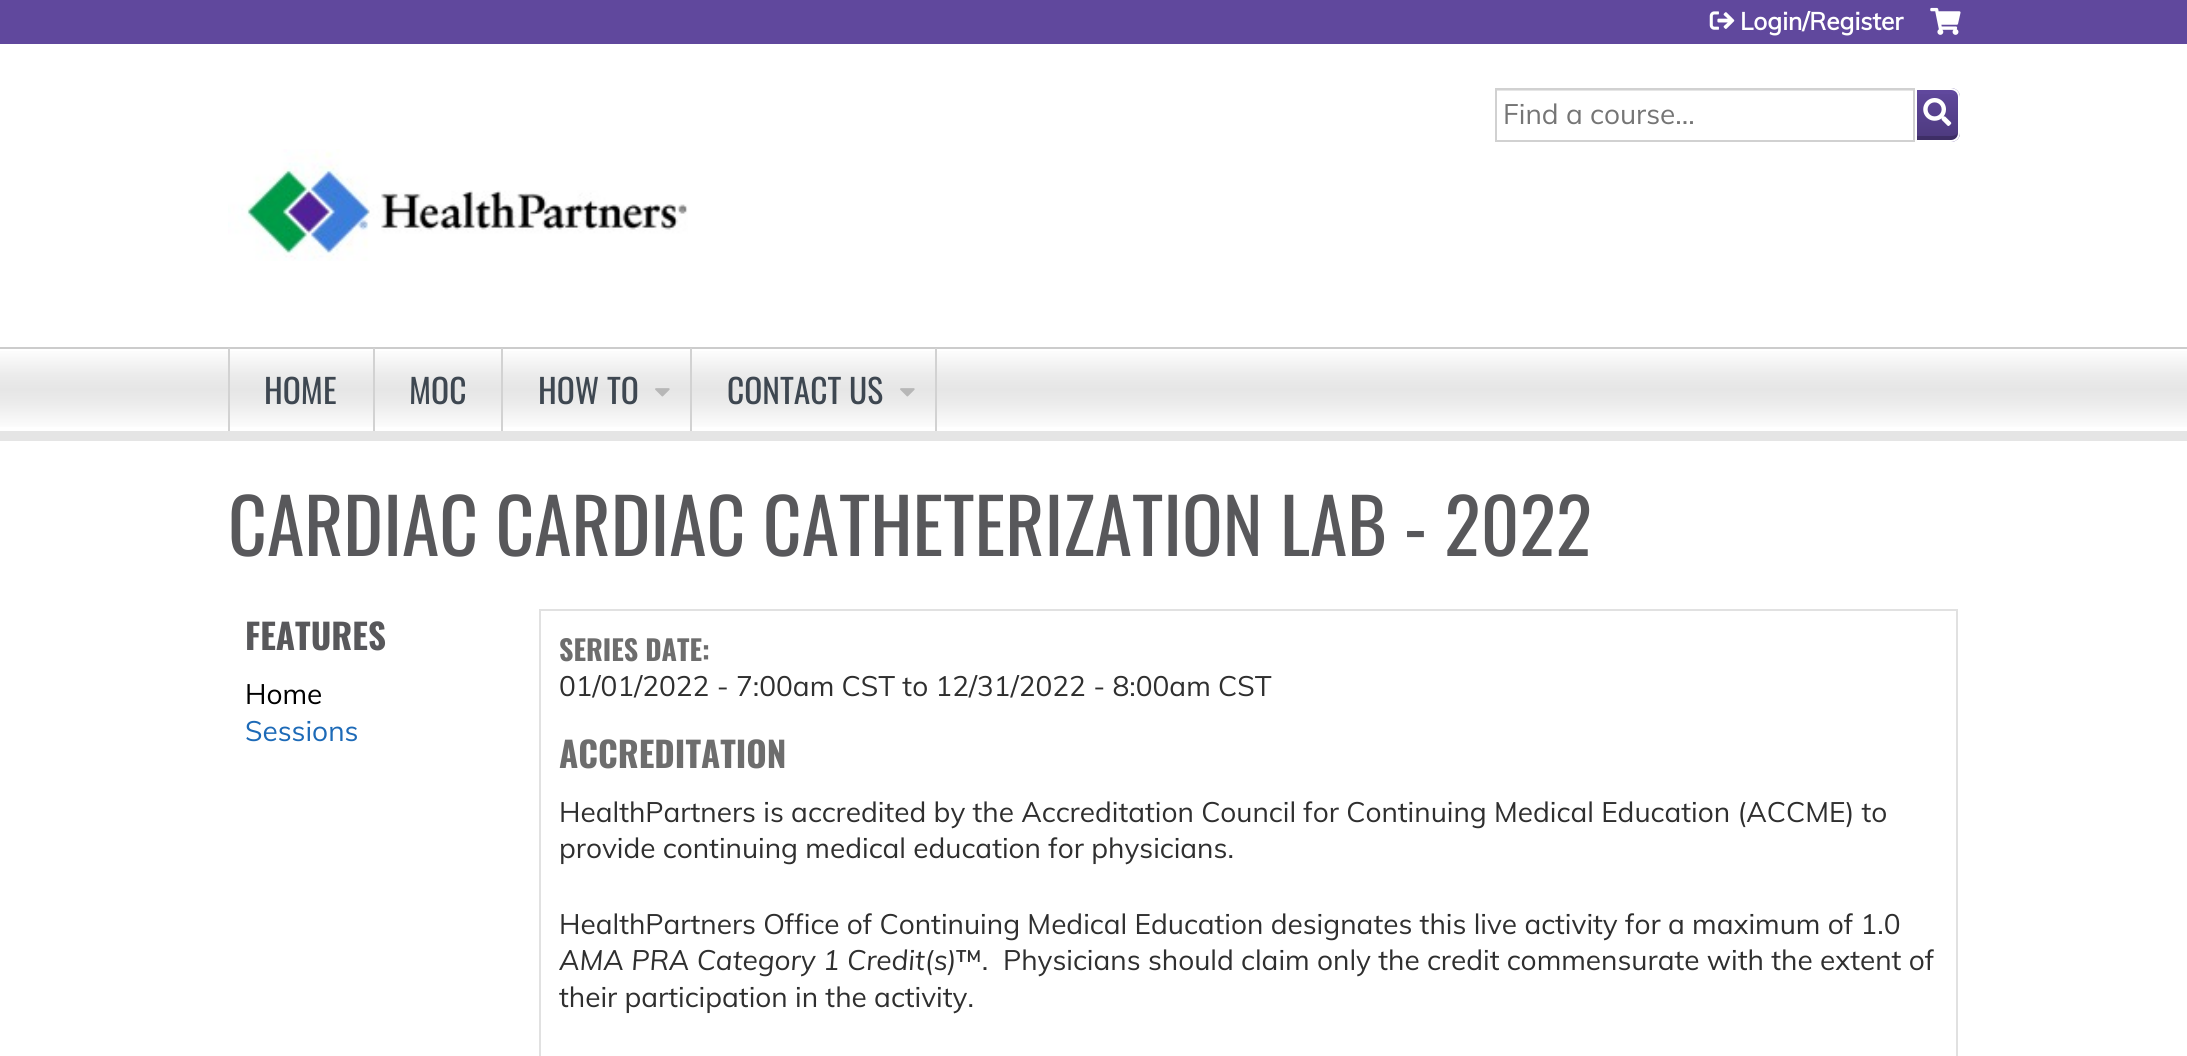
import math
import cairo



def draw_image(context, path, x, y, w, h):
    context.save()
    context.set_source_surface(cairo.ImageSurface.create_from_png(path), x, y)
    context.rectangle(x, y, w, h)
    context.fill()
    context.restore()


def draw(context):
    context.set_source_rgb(1, 1, 1)
    context.paint()
    context.set_source_rgb(96 / 255, 72 / 255, 157 / 255)
    context.rectangle(0, 0, 2187, 44)
    context.fill()
    draw_image(context, "images/1.png", 1709, 11, 26, 19)
    draw_image(context, "images/2.png", 1930, 7, 31, 28)
    context.new_path()
    context.move_to(1915, 88)
    context.line_to(1951, 88)
    context.curve_to(1956, 88, 1960, 92, 1960, 97)
    context.line_to(1960, 133)
    context.curve_to(1960, 138, 1956, 142, 1951, 142)
    context.line_to(1915, 142)
    context.close_path()
    context.fill()
    context.save()
    context.new_path()
    context.move_to(1915, 88)
    context.line_to(1951, 88)
    context.curve_to(1956, 88, 1960, 92, 1960, 97)
    context.line_to(1960, 133)
    context.curve_to(1960, 138, 1956, 142, 1951, 142)
    context.line_to(1915, 142)
    context.close_path()
    context.clip()
    gradient = cairo.LinearGradient(1937, 140, 1937, 89)
    gradient.add_color_stop_rgba(0, 0, 0, 0, 0.2)
    gradient.add_color_stop_rgba(1, 0, 0, 0, 0)
    context.set_source(gradient)
    context.rectangle(1917, 94, 43, 46)
    context.fill()
    context.restore()
    context.set_source_rgba(0, 0, 0, 0.2)
    context.new_path()
    context.move_to(1916, 136)
    context.line_to(1916, 140)
    context.line_to(1951, 140)
    context.curve_to(1955, 140, 1958, 137, 1958, 133)
    context.curve_to(1956, 135, 1954, 136, 1951, 136)
    context.close_path()
    context.fill()
    context.new_path()
    context.move_to(1916, 89)
    context.line_to(1951, 89)
    context.curve_to(1955.5, 89, 1959, 92.5, 1959, 97)
    context.line_to(1959, 133)
    context.curve_to(1959, 137.5, 1955.5, 141, 1951, 141)
    context.line_to(1916, 141)
    context.close_path()
    context.set_source_rgb(1, 1, 1)
    context.stroke()
    context.set_source_rgb(230 / 255, 230 / 255, 230 / 255)
    context.rectangle(1496, 90, 417, 1)
    context.fill()
    context.rectangle(1496, 89, 418, 52)
    context.set_source_rgb(209 / 255, 209 / 255, 209 / 255)
    context.stroke()
    draw_image(context, "images/3.png", 1923, 98, 29, 28)
    draw_image(context, "images/4.png", 228, 149, 460, 112)
    gradient = cairo.LinearGradient(1094, 348, 1094, 431)
    gradient.add_color_stop_rgba(0, 1, 1, 1, 1)
    gradient.add_color_stop_rgba(0.33, 235 / 255, 235 / 255, 235 / 255, 1)
    gradient.add_color_stop_rgba(0.5, 230 / 255, 230 / 255, 230 / 255, 1)
    gradient.add_color_stop_rgba(0.66, 235 / 255, 235 / 255, 235 / 255, 1)
    gradient.add_color_stop_rgba(1, 1, 1, 1, 1)
    context.set_source(gradient)
    context.rectangle(0, 351, 2187, 76)
    context.fill()
    context.set_source_rgb(204 / 255, 204 / 255, 204 / 255)
    context.rectangle(0, 347, 2187, 2)
    context.fill()
    context.set_source_rgb(229 / 255, 229 / 255, 229 / 255)
    context.rectangle(0, 431, 2187, 10)
    context.fill()
    context.set_source_rgb(210 / 255, 210 / 255, 210 / 255)
    context.rectangle(373, 348, 2, 83)
    context.fill()
    context.rectangle(228, 348, 2, 83)
    context.fill()
    context.rectangle(501, 348, 2, 83)
    context.fill()
    context.rectangle(690, 348, 2, 83)
    context.fill()
    draw_image(context, "images/5.png", 655, 388, 15, 9)
    context.rectangle(935, 348, 2, 83)
    context.fill()
    draw_image(context, "images/5.png", 900, 388, 15, 9)
    context.rectangle(540, 610, 1417, 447)
    context.set_source_rgb(225 / 255, 225 / 255, 225 / 255)
    context.stroke()
    context.select_font_face("Muli", cairo.FontSlant.NORMAL, cairo.FontWeight.BOLD)
    context.set_font_size(24.5)
    context.set_source_rgb(1, 1, 1)
    context.move_to(1740, 30)
    context.show_text("Login/Register")
    context.select_font_face("Muli")
    context.set_font_size(28)
    context.set_source_rgb(117 / 255, 117 / 255, 117 / 255)
    context.move_to(1503, 124)
    context.show_text("Find a course...")
    context.select_font_face("Oswald")
    context.set_font_size(33.5)
    context.set_source_rgb(62 / 255, 71 / 255, 81 / 255)
    context.move_to(264, 404)
    context.show_text("HOME")
    context.move_to(409, 404)
    context.show_text("MOC")
    context.move_to(538, 404)
    context.show_text("HOW TO")
    context.move_to(727, 404)
    context.show_text("CONTACT US")
    context.set_font_size(75.6)
    context.set_source_rgb(88 / 255, 88 / 255, 91 / 255)
    context.move_to(228, 556)
    context.show_text("CARDIAC CARDIAC CATHETERIZATION LAB - 2022")
    context.select_font_face("Oswald", cairo.FontSlant.NORMAL, cairo.FontWeight.BOLD)
    context.set_font_size(35)
    context.move_to(245, 650)
    context.show_text("FEATURES")
    context.select_font_face("Muli")
    context.set_font_size(28)
    context.set_source_rgb(0, 0, 0)
    context.move_to(245, 704)
    context.show_text("Home")
    context.set_source_rgb(29 / 255, 106 / 255, 183 / 255)
    context.move_to(245, 741)
    context.show_text("Sessions")
    context.select_font_face("Oswald", cairo.FontSlant.NORMAL, cairo.FontWeight.BOLD)
    context.set_source_rgb(109 / 255, 109 / 255, 109 / 255)
    context.move_to(559, 661)
    context.show_text("SERIES DATE:")
    context.select_font_face("Muli")
    context.set_source_rgb(47 / 255, 47 / 255, 47 / 255)
    context.move_to(559, 696)
    context.show_text("01/01/2022 - 7:00am CST to 12/31/2022 - 8:00am CST")
    context.select_font_face("Oswald", cairo.FontSlant.NORMAL, cairo.FontWeight.BOLD)
    context.set_font_size(35)
    context.set_source_rgb(109 / 255, 109 / 255, 109 / 255)
    context.move_to(559, 768)
    context.show_text("ACCREDITATION")
    context.select_font_face("Muli")
    context.set_font_size(28)
    context.set_source_rgb(47 / 255, 47 / 255, 47 / 255)
    context.move_to(559, 822)
    context.show_text("HealthPartners is accredited by the Accreditation Council for Continuing Medical Education (ACCME) to")
    context.move_to(559, 858)
    context.show_text("provide continuing medical education for physicians.")
    context.move_to(559, 934)
    context.show_text("HealthPartners Office of Continuing Medical Education designates this live activity for a maximum of 1.0")
    context.select_font_face("Muli", cairo.FontSlant.ITALIC)
    context.move_to(559, 970)
    context.show_text("AMA PRA Category 1 Credit(s)")
    context.select_font_face("Muli")
    context.move_to(956, 970)
    context.show_text("™.  Physicians should claim only the credit commensurate with the extent of")
    context.move_to(559, 1007)
    context.show_text("their participation in the activity.")


surface = cairo.ImageSurface(cairo.Format.RGB24, 2187, 1056)
context = cairo.Context(surface)
options = cairo.FontOptions()
options.set_hint_metrics(cairo.HintMetrics.OFF)
options.set_hint_style(cairo.HintStyle.NONE)
context.set_font_options(options)
context.set_miter_limit(4)
draw(context)
surface.write_to_png("out.png")
